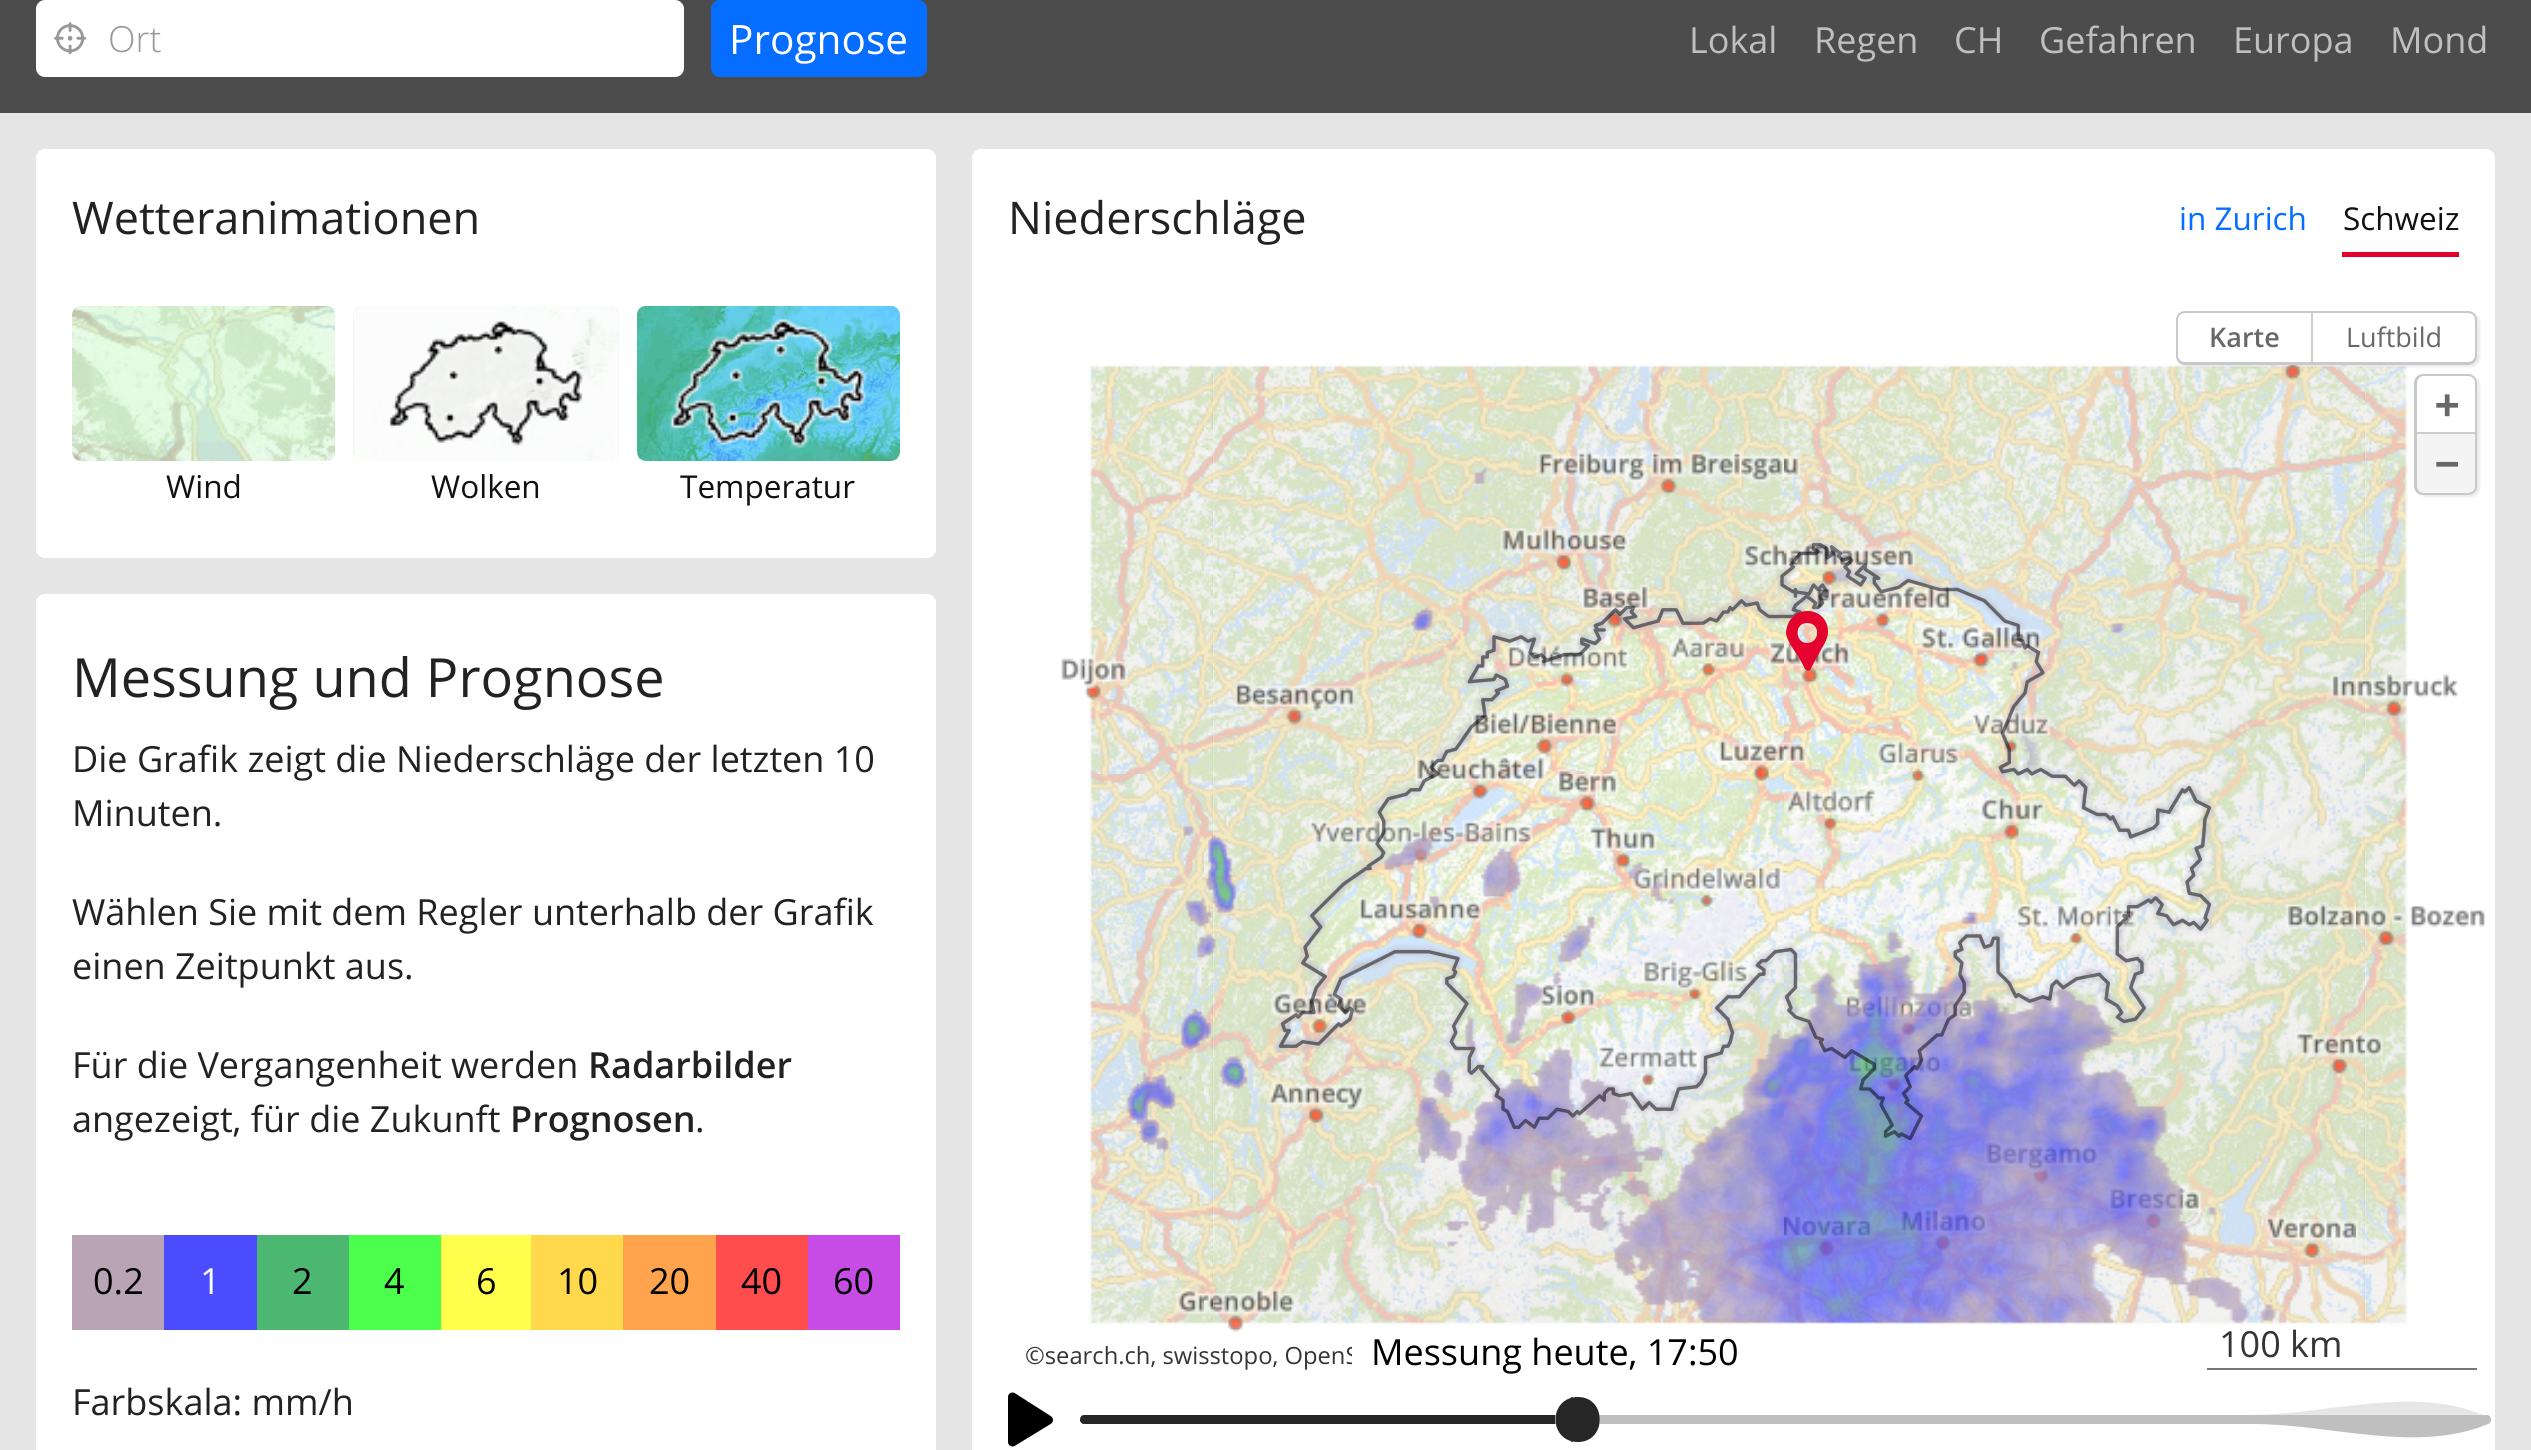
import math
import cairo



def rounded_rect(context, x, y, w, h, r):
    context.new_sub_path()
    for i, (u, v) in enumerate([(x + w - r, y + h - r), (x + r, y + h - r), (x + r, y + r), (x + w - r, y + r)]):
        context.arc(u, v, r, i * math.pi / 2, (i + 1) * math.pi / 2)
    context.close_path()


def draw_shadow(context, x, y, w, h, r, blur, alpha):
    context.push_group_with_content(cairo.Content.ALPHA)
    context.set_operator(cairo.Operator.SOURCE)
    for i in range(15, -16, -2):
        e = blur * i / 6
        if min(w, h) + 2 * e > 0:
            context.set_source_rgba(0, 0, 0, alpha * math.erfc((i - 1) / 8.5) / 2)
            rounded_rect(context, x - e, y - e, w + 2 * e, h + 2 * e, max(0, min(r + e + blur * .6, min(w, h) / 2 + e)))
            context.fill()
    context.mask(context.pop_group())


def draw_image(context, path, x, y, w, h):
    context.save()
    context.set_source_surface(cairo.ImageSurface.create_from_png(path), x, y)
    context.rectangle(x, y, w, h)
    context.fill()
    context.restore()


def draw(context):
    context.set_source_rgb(229 / 255, 229 / 255, 229 / 255)
    context.paint()
    context.set_source_rgb(76 / 255, 76 / 255, 76 / 255)
    context.rectangle(0, 0, 2531, 113)
    context.fill()
    context.set_source_rgb(1, 1, 1)
    rounded_rect(context, 36, 0, 648, 77, 9)
    context.fill()
    draw_image(context, "images/1.png", 54, 22, 33, 33)
    context.set_source_rgb(5 / 255, 109 / 255, 1)
    rounded_rect(context, 711, 0, 216, 77, 9)
    context.fill()
    context.set_source_rgb(1, 1, 1)
    rounded_rect(context, 36, 149, 900, 409, 9)
    context.fill()
    draw_image(context, "images/2.png", 72, 305, 264, 156)
    draw_image(context, "images/3.png", 72, 306, 263, 155)
    draw_image(context, "images/4.png", 353, 306, 266, 155)
    draw_image(context, "images/5.png", 353, 306, 266, 155)
    draw_image(context, "images/6.png", 389, 321, 194, 125)
    draw_image(context, "images/7.png", 636, 305, 264, 156)
    draw_image(context, "images/8.png", 668, 317, 199, 131)
    rounded_rect(context, 36, 594, 900, 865, 9)
    context.fill()
    context.set_source_rgb(185 / 255, 164 / 255, 181 / 255)
    context.rectangle(72, 1235, 92, 95)
    context.fill()
    context.set_source_rgb(76 / 255, 76 / 255, 1)
    context.rectangle(164, 1235, 93, 95)
    context.fill()
    context.set_source_rgb(76 / 255, 183 / 255, 112 / 255)
    context.rectangle(257, 1235, 92, 95)
    context.fill()
    context.set_source_rgb(76 / 255, 1, 76 / 255)
    context.rectangle(349, 1235, 92, 95)
    context.fill()
    context.set_source_rgb(1, 1, 76 / 255)
    context.rectangle(441, 1235, 90, 95)
    context.fill()
    context.set_source_rgb(1, 216 / 255, 76 / 255)
    context.rectangle(531, 1235, 92, 95)
    context.fill()
    context.set_source_rgb(1, 164 / 255, 76 / 255)
    context.rectangle(623, 1235, 93, 95)
    context.fill()
    context.set_source_rgb(1, 76 / 255, 76 / 255)
    context.rectangle(716, 1235, 92, 95)
    context.fill()
    context.set_source_rgb(199 / 255, 76 / 255, 230 / 255)
    context.rectangle(808, 1235, 92, 95)
    context.fill()
    context.set_source_rgb(1, 1, 1)
    rounded_rect(context, 972, 149, 1523, 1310, 9)
    context.fill()
    context.set_source_rgb(228 / 255, 0, 44 / 255)
    context.rectangle(2342, 252, 117, 5)
    context.fill()
    draw_image(context, "images/10.png", 1212, 361, 1153, 974)
    draw_image(context, "images/11.png", 2364, 365, 55, 969)
    draw_image(context, "images/9.png", 1086, 362, 127, 973)
    draw_image(context, "images/12.png", 1086, 361, 1333, 974)
    draw_image(context, "images/14.png", 1212, 365, 1153, 968)
    context.set_source_rgb(3 / 255, 3 / 255, 3 / 255)
    draw_shadow(context, 2178, 313, 302, 54, 9, 1, 0.08)
    context.set_source_rgb(201 / 255, 201 / 255, 201 / 255)
    context.new_path()
    context.move_to(2185, 311)
    context.line_to(2468, 311)
    context.curve_to(2473, 311, 2477, 315, 2477, 320)
    context.line_to(2477, 356)
    context.curve_to(2477, 361, 2473, 365, 2468, 365)
    context.line_to(2185, 365)
    context.curve_to(2180, 365, 2176, 361, 2176, 356)
    context.line_to(2176, 320)
    context.curve_to(2176, 315, 2180, 311, 2185, 311)
    context.close_path()
    context.fill()
    context.set_source_rgb(1, 1, 1)
    context.new_path()
    context.move_to(2185, 313)
    context.line_to(2313, 313)
    context.line_to(2313, 362)
    context.line_to(2185, 362)
    context.curve_to(2181, 362, 2178, 359, 2178, 355)
    context.line_to(2178, 320)
    context.curve_to(2178, 316, 2181, 313, 2185, 313)
    context.close_path()
    context.fill()
    context.set_source_rgb(205 / 255, 205 / 255, 205 / 255)
    context.rectangle(2311, 313, 2, 49)
    context.fill()
    context.set_source_rgb(1, 1, 1)
    context.new_path()
    context.move_to(2313, 313)
    context.line_to(2468, 313)
    context.curve_to(2472, 313, 2475, 316, 2475, 320)
    context.line_to(2475, 355)
    context.curve_to(2475, 359, 2472, 362, 2468, 362)
    context.line_to(2313, 362)
    context.close_path()
    context.fill()
    context.set_source_rgb(3 / 255, 3 / 255, 3 / 255)
    draw_shadow(context, 2417, 376, 63, 121, 9, 1, 0.08)
    context.set_source_rgb(201 / 255, 201 / 255, 201 / 255)
    context.new_path()
    context.move_to(2423, 374)
    context.line_to(2468, 374)
    context.curve_to(2473, 374, 2477, 378, 2477, 383)
    context.line_to(2477, 486)
    context.curve_to(2477, 491, 2473, 495, 2468, 495)
    context.line_to(2423, 495)
    context.curve_to(2418, 495, 2414, 491, 2414, 486)
    context.line_to(2414, 383)
    context.curve_to(2414, 378, 2418, 374, 2423, 374)
    context.close_path()
    context.fill()
    context.set_source_rgb(1, 1, 1)
    context.new_path()
    context.move_to(2424, 376)
    context.line_to(2468, 376)
    context.curve_to(2472, 376, 2475, 379, 2475, 383)
    context.line_to(2475, 434)
    context.line_to(2417, 434)
    context.line_to(2417, 383)
    context.curve_to(2417, 379, 2420, 376, 2424, 376)
    context.close_path()
    context.fill()
    context.set_source_rgb(205 / 255, 205 / 255, 205 / 255)
    context.rectangle(2417, 432, 58, 2)
    context.fill()
    context.set_source_rgb(244 / 255, 244 / 255, 244 / 255)
    context.new_path()
    context.move_to(2417, 434)
    context.line_to(2475, 434)
    context.line_to(2475, 486)
    context.curve_to(2475, 490, 2472, 493, 2468, 493)
    context.line_to(2424, 493)
    context.curve_to(2420, 493, 2417, 490, 2417, 486)
    context.close_path()
    context.fill()
    context.set_source_rgb(120 / 255, 120 / 255, 120 / 255)
    context.rectangle(2207, 1368, 270, 2)
    context.fill()
    draw_image(context, "images/13.png", 1061, 655, 152, 660)
    draw_image(context, "images/15.png", 2364, 672, 121, 386)
    draw_image(context, "images/16.png", 1126, 424, 1150, 900)
    draw_image(context, "images/17.png", 1278, 542, 934, 599)
    context.set_source_rgb(228 / 255, 3 / 255, 46 / 255)
    context.new_path()
    context.move_to(1828, 632)
    context.curve_to(1828, 605, 1789, 603, 1786, 632)
    context.curve_to(1786, 640, 1794, 650, 1798, 656)
    context.line_to(1803, 665)
    context.curve_to(1804, 667, 1806, 673, 1810, 670)
    context.line_to(1822, 648)
    context.curve_to(1825, 643, 1828, 638, 1828, 632)
    context.close_path()
    context.move_to(1807, 643)
    context.curve_to(1795, 643, 1794, 623, 1807, 623)
    context.curve_to(1821, 623, 1820, 643, 1807, 643)
    context.close_path()
    context.fill()
    context.set_source_rgb(0, 0, 0)
    context.new_path()
    context.move_to(1012, 1397)
    context.line_to(1048, 1420)
    context.line_to(1012, 1442)
    context.close_path()
    context.fill()
    context.new_path()
    context.move_to(1012.5, 1397)
    context.line_to(1048.5, 1420)
    context.line_to(1012.5, 1442)
    context.close_path()
    context.set_line_width(9)
    context.set_line_join(cairo.LineJoin.ROUND)
    context.stroke()
    context.set_source_rgb(230 / 255, 230 / 255, 230 / 255)
    context.new_path()
    context.move_to(1084, 1415)
    context.line_to(2249, 1415)
    context.curve_to(2327, 1415, 2411, 1385, 2483, 1415)
    context.curve_to(2488, 1417, 2486, 1424, 2482, 1424)
    context.line_to(1084, 1424)
    context.curve_to(1079, 1424, 1079, 1415, 1084, 1415)
    context.close_path()
    context.fill()
    context.set_source_rgb(191 / 255, 191 / 255, 191 / 255)
    rounded_rect(context, 1080, 1415, 1411, 9, 4.5)
    context.fill()
    context.new_path()
    context.move_to(1084, 1415)
    context.line_to(2486, 1415)
    context.curve_to(2491, 1415, 2493, 1422, 2488, 1424)
    context.curve_to(2416, 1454, 2331, 1424, 2253, 1424)
    context.line_to(1084, 1424)
    context.curve_to(1079, 1424, 1079, 1415, 1084, 1415)
    context.close_path()
    context.fill()
    context.set_source_rgb(38 / 255, 38 / 255, 38 / 255)
    context.new_path()
    context.move_to(1084, 1415)
    context.line_to(1564, 1415)
    context.curve_to(1566, 1415, 1568, 1417, 1568, 1420)
    context.curve_to(1568, 1422, 1566, 1424, 1564, 1424)
    context.line_to(1084, 1424)
    context.curve_to(1082, 1424, 1080, 1422, 1080, 1420)
    context.curve_to(1080, 1417, 1082, 1415, 1084, 1415)
    context.close_path()
    context.fill()
    context.rectangle(1571, 1397, 2, 45)
    context.fill()
    context.set_source_rgb(1, 1, 1)
    context.arc(1577.5, 1419.5, 22.5, 0, 2 * math.pi)
    context.fill()
    context.set_source_rgb(38 / 255, 38 / 255, 38 / 255)
    context.new_path()
    context.move_to(1578, 1397)
    context.curve_to(1607, 1397, 1607, 1442, 1578, 1442)
    context.curve_to(1548, 1442, 1548, 1397, 1578, 1397)
    context.close_path()
    context.fill()
    context.select_font_face("Open Sans Light")
    context.set_font_size(36)
    context.set_source_rgb(153 / 255, 153 / 255, 153 / 255)
    context.move_to(108, 52)
    context.show_text("Ort")
    context.select_font_face("Open Sans")
    context.set_font_size(40.5)
    context.set_source_rgb(1, 1, 1)
    context.move_to(729, 54)
    context.show_text("Prognose")
    context.set_font_size(36)
    context.set_source_rgb(191 / 255, 191 / 255, 191 / 255)
    context.move_to(1689, 53)
    context.show_text("Lokal")
    context.move_to(1814, 53)
    context.show_text("Regen")
    context.move_to(1954, 53)
    context.show_text("CH")
    context.move_to(2039, 53)
    context.show_text("Gefahren")
    context.move_to(2233, 53)
    context.show_text("Europa")
    context.move_to(2390, 53)
    context.show_text("Mond")
    context.set_font_size(45)
    context.set_source_rgb(34 / 255, 34 / 255, 34 / 255)
    context.move_to(72, 234)
    context.show_text("Wetteranimationen")
    context.set_font_size(31.5)
    context.set_source_rgb(17 / 255, 17 / 255, 17 / 255)
    context.move_to(166, 498)
    context.show_text("Wind")
    context.move_to(431, 498)
    context.show_text("Wolken")
    context.move_to(680, 498)
    context.show_text("Temperatur")
    context.set_font_size(54)
    context.set_source_rgb(34 / 255, 34 / 255, 34 / 255)
    context.move_to(72, 697)
    context.show_text("Messung und Prognose")
    context.set_font_size(36)
    context.move_to(72, 772)
    context.show_text("Die Grafik zeigt die Niederschläge der letzten 10")
    context.move_to(72, 826)
    context.show_text("Minuten.")
    context.move_to(72, 925)
    context.show_text("Wählen Sie mit dem Regler unterhalb der Grafik")
    context.move_to(72, 979)
    context.show_text("einen Zeitpunkt aus.")
    context.move_to(72, 1078)
    context.show_text("Für die Vergangenheit werden")
    context.select_font_face("Open Sans SemiBold")
    context.move_to(588, 1078)
    context.show_text("Radarbilder")
    context.select_font_face("Open Sans")
    context.move_to(72, 1132)
    context.show_text("angezeigt, für die Zukunft")
    context.select_font_face("Open Sans SemiBold")
    context.move_to(510, 1132)
    context.show_text("Prognosen")
    context.select_font_face("Open Sans")
    context.move_to(695, 1132)
    context.show_text(".")
    context.set_source_rgb(0, 0, 0)
    context.move_to(93, 1294)
    context.show_text("0.2")
    context.set_source_rgb(1, 1, 1)
    context.move_to(200, 1294)
    context.show_text("1")
    context.set_source_rgb(0, 0, 0)
    context.move_to(292, 1294)
    context.show_text("2")
    context.move_to(384, 1294)
    context.show_text("4")
    context.move_to(476, 1294)
    context.show_text("6")
    context.move_to(557, 1294)
    context.show_text("10")
    context.move_to(649, 1294)
    context.show_text("20")
    context.move_to(741, 1294)
    context.show_text("40")
    context.move_to(833, 1294)
    context.show_text("60")
    context.set_source_rgb(34 / 255, 34 / 255, 34 / 255)
    context.move_to(72, 1415)
    context.show_text("Farbskala: mm/h")
    context.set_font_size(45)
    context.move_to(1008, 234)
    context.show_text("Niederschläge")
    context.set_font_size(31.5)
    context.set_source_rgb(5 / 255, 109 / 255, 1)
    context.move_to(2179, 230)
    context.show_text("in Zurich")
    context.set_source_rgb(17 / 255, 17 / 255, 17 / 255)
    context.move_to(2343, 230)
    context.show_text("Schweiz")
    context.select_font_face("Open Sans SemiBold")
    context.set_font_size(27)
    context.set_source_rgb(104 / 255, 104 / 255, 104 / 255)
    context.move_to(2209, 347)
    context.show_text("Karte")
    context.select_font_face("Open Sans")
    context.move_to(2346, 347)
    context.show_text("Luftbild")
    context.select_font_face("DejaVu Sans Mono", cairo.FontSlant.NORMAL, cairo.FontWeight.BOLD)
    context.set_font_size(40.5)
    context.move_to(2435, 418)
    context.show_text("+")
    context.move_to(2435, 477)
    context.show_text("−")
    context.select_font_face("Open Sans")
    context.set_font_size(23.75)
    context.set_source_rgb(53 / 255, 53 / 255, 53 / 255)
    context.move_to(1025, 1364)
    context.show_text("©search.ch, swisstopo, OpenS")
    context.set_font_size(36)
    context.move_to(2219, 1357)
    context.show_text("100 km")
    context.set_source_rgb(1, 1, 1)
    context.rectangle(1352, 1325, 146, 40)
    context.fill()
    context.set_source_rgb(0, 0, 0)
    context.move_to(1371, 1365)
    context.show_text("Messung heute, 17:50")


surface = cairo.ImageSurface(cairo.Format.RGB24, 2531, 1450)
context = cairo.Context(surface)
options = cairo.FontOptions()
options.set_hint_metrics(cairo.HintMetrics.OFF)
options.set_hint_style(cairo.HintStyle.NONE)
context.set_font_options(options)
context.set_miter_limit(4)
draw(context)
surface.write_to_png("out.png")
